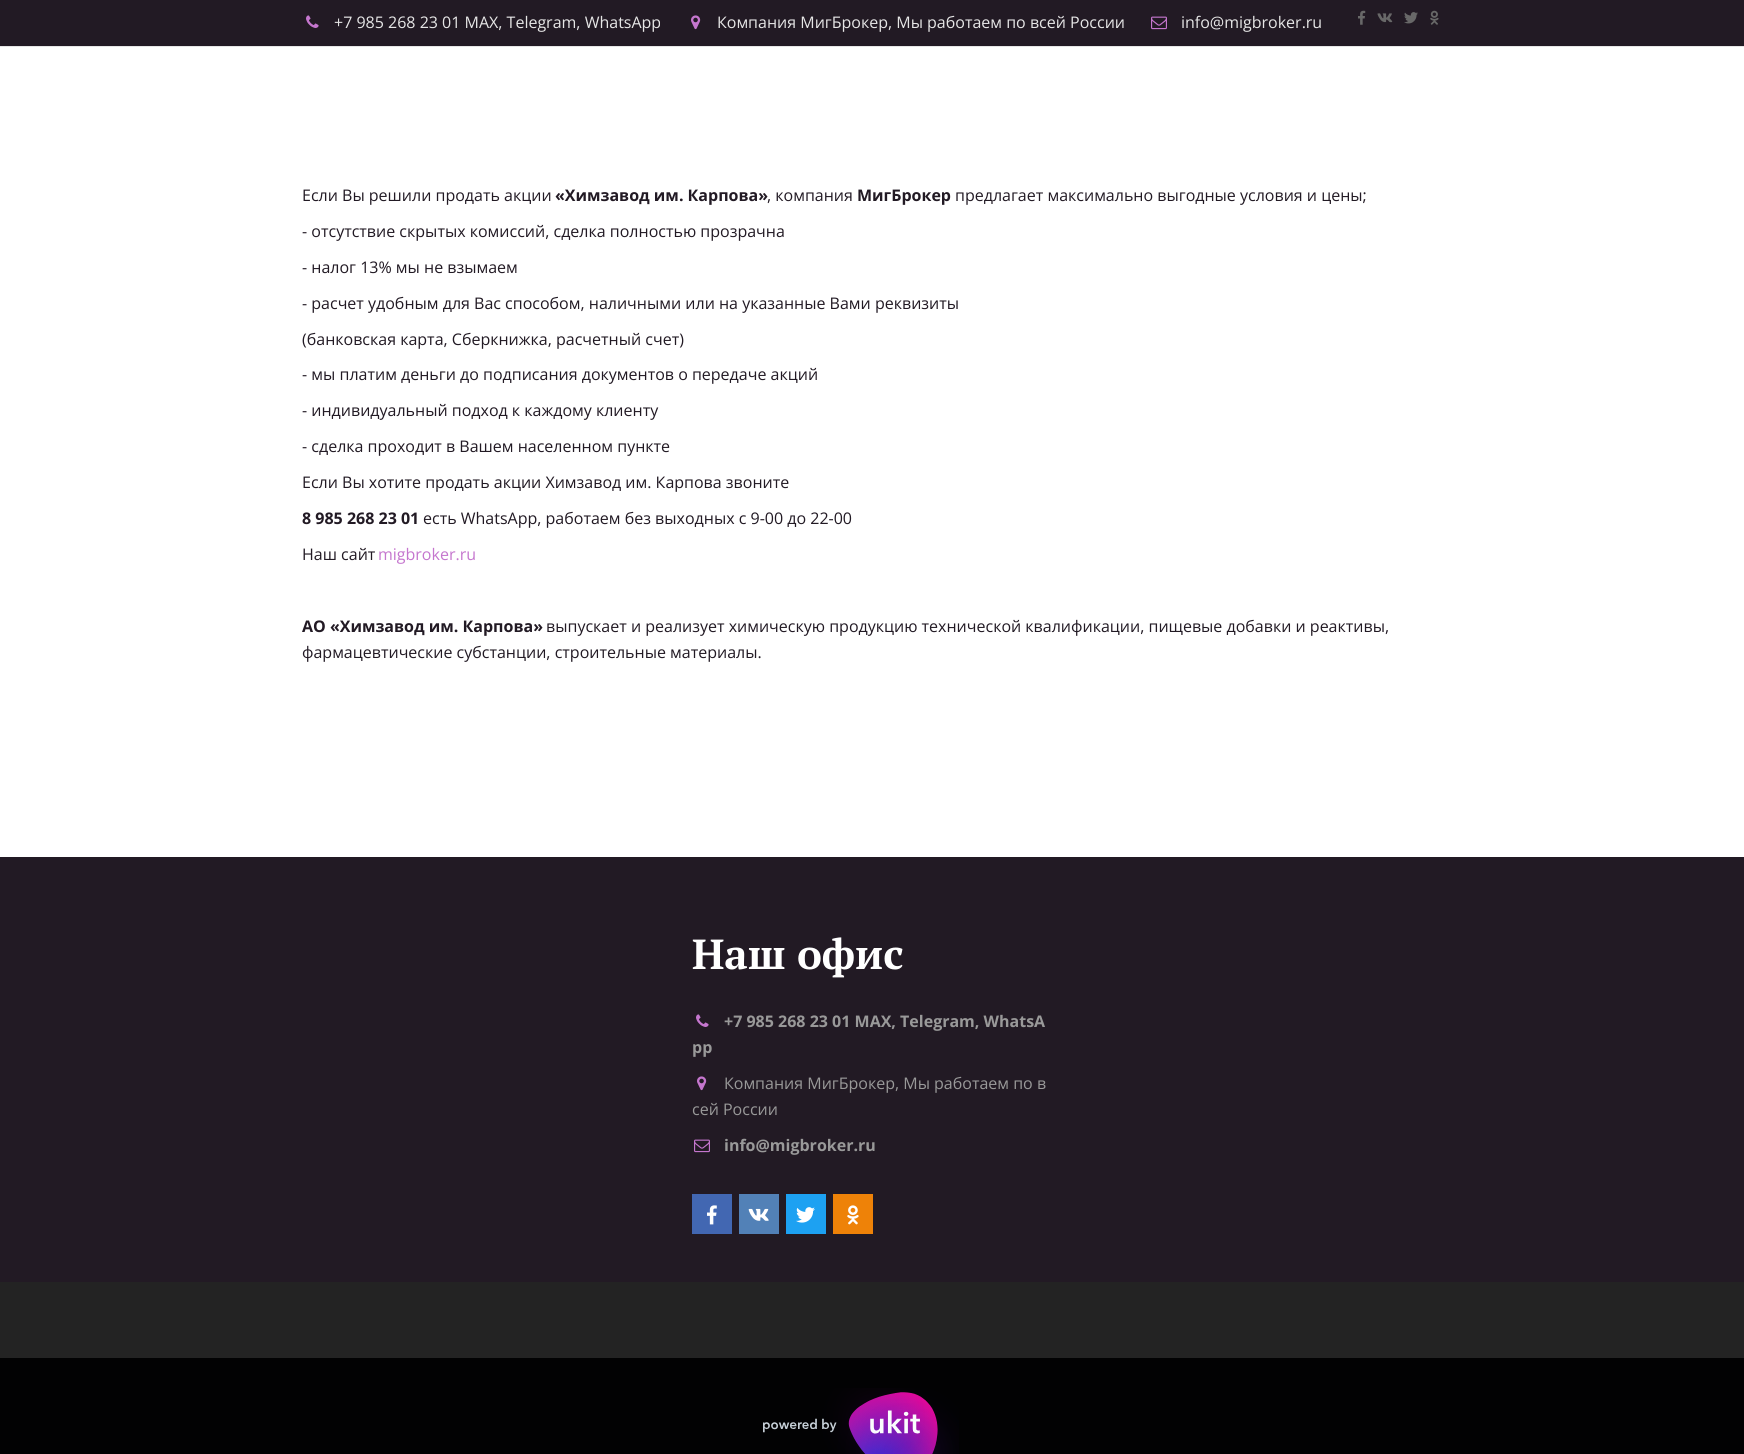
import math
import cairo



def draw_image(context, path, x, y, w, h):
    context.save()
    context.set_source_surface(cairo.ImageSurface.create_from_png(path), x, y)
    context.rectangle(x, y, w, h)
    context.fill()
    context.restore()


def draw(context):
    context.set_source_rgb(1, 1, 1)
    context.paint()
    context.set_source_rgb(34 / 255, 26 / 255, 36 / 255)
    context.rectangle(0, 0, 1744, 46)
    context.fill()
    context.set_source_rgb(230 / 255, 230 / 255, 230 / 255)
    context.rectangle(0, 46, 1744, 1)
    context.fill()
    draw_image(context, "images/1.png", 306, 15, 13, 13)
    draw_image(context, "images/2.png", 691, 15, 10, 15)
    draw_image(context, "images/3.png", 1151, 16, 16, 14)
    draw_image(context, "images/4.png", 1358, 10, 8, 15)
    draw_image(context, "images/5.png", 1377, 13, 16, 10)
    draw_image(context, "images/6.png", 1404, 12, 14, 12)
    draw_image(context, "images/7.png", 1430, 10, 9, 15)
    context.set_source_rgb(34 / 255, 26 / 255, 36 / 255)
    context.rectangle(0, 857, 1744, 425)
    context.fill()
    draw_image(context, "images/1.png", 696, 1014, 13, 13)
    draw_image(context, "images/2.png", 697, 1076, 10, 15)
    draw_image(context, "images/3.png", 694, 1139, 16, 14)
    context.set_source_rgb(66 / 255, 103 / 255, 178 / 255)
    context.rectangle(692, 1194, 40, 40)
    context.fill()
    draw_image(context, "images/8.png", 707, 1205, 10, 20)
    context.set_source_rgb(82 / 255, 129 / 255, 183 / 255)
    context.rectangle(739, 1194, 40, 40)
    context.fill()
    draw_image(context, "images/9.png", 748, 1208, 21, 13)
    context.set_source_rgb(29 / 255, 161 / 255, 242 / 255)
    context.rectangle(786, 1194, 40, 40)
    context.fill()
    draw_image(context, "images/10.png", 796, 1207, 19, 16)
    context.set_source_rgb(238 / 255, 130 / 255, 8 / 255)
    context.rectangle(833, 1194, 40, 40)
    context.fill()
    draw_image(context, "images/11.png", 847, 1205, 12, 20)
    context.set_source_rgb(35 / 255, 35 / 255, 35 / 255)
    context.rectangle(0, 1282, 1744, 76)
    context.fill()
    context.set_source_rgb(2 / 255, 2 / 255, 3 / 255)
    context.rectangle(0, 1358, 1744, 96)
    context.fill()
    draw_image(context, "images/12.png", 763, 1388, 196, 66)
    context.select_font_face("Open Sans")
    context.set_font_size(16)
    context.set_source_rgb(230 / 255, 230 / 255, 230 / 255)
    context.move_to(334, 28)
    context.show_text("+7 985 268 23 01 MAX, Telegram, WhatsApp")
    context.move_to(717, 28)
    context.show_text("Компания МигБрокер, Мы работаем по всей России")
    context.move_to(1181, 28)
    context.show_text("info@migbroker.ru")
    context.set_source_rgb(34 / 255, 26 / 255, 36 / 255)
    context.move_to(302, 201)
    context.show_text("Если Вы решили продать акции")
    context.select_font_face("Open Sans", cairo.FontSlant.NORMAL, cairo.FontWeight.BOLD)
    context.move_to(555, 201)
    context.show_text("«Химзавод им. Карпова»")
    context.select_font_face("Open Sans")
    context.move_to(767, 201)
    context.show_text(", компания")
    context.select_font_face("Open Sans", cairo.FontSlant.NORMAL, cairo.FontWeight.BOLD)
    context.move_to(857, 201)
    context.show_text("МигБрокер")
    context.select_font_face("Open Sans")
    context.move_to(955, 201)
    context.show_text("предлагает максимально выгодные условия и цены;")
    context.move_to(302, 237)
    context.show_text("- отсутствие скрытых комиссий, сделка полностью прозрачна")
    context.move_to(302, 273)
    context.show_text("- налог 13% мы не взымаем")
    context.move_to(302, 309)
    context.show_text("- расчет удобным для Вас способом, наличными или на указанные Вами реквизиты")
    context.move_to(302, 345)
    context.show_text("(банковская карта, Сберкнижка, расчетный счет)")
    context.move_to(302, 380)
    context.show_text("- мы платим деньги до подписания документов о передаче акций")
    context.move_to(302, 416)
    context.show_text("- индивидуальный подход к каждому клиенту")
    context.move_to(302, 452)
    context.show_text("- сделка проходит в Вашем населенном пункте")
    context.move_to(302, 488)
    context.show_text("Если Вы хотите продать акции Химзавод им. Карпова звоните")
    context.select_font_face("Open Sans", cairo.FontSlant.NORMAL, cairo.FontWeight.BOLD)
    context.move_to(302, 524)
    context.show_text("8 985 268 23 01")
    context.select_font_face("Open Sans")
    context.move_to(423, 524)
    context.show_text("есть WhatsApp, работаем без выходных с 9-00 до 22-00")
    context.move_to(302, 560)
    context.show_text("Наш сайт")
    context.set_source_rgb(197 / 255, 118 / 255, 206 / 255)
    context.move_to(378, 560)
    context.show_text("migbroker.ru")
    context.select_font_face("Open Sans", cairo.FontSlant.NORMAL, cairo.FontWeight.BOLD)
    context.set_source_rgb(34 / 255, 26 / 255, 36 / 255)
    context.move_to(302, 632)
    context.show_text("АО «Химзавод им. Карпова»")
    context.select_font_face("Open Sans")
    context.move_to(546, 632)
    context.show_text("выпускает и реализует химическую продукцию технической квалификации, пищевые добавки и реактивы,")
    context.move_to(302, 658)
    context.show_text("фармацевтические субстанции, строительные материалы.")
    context.select_font_face("PT Serif", cairo.FontSlant.NORMAL, cairo.FontWeight.BOLD)
    context.set_font_size(42)
    context.set_source_rgb(1, 1, 1)
    context.move_to(692, 969)
    context.show_text("Наш офис")
    context.select_font_face("Open Sans", cairo.FontSlant.NORMAL, cairo.FontWeight.BOLD)
    context.set_font_size(16)
    context.set_source_rgb(153 / 255, 153 / 255, 153 / 255)
    context.move_to(724, 1027)
    context.show_text("+7 985 268 23 01 MAX, Telegram, WhatsA")
    context.move_to(692, 1053)
    context.show_text("pp")
    context.select_font_face("Open Sans")
    context.move_to(724, 1089)
    context.show_text("Компания МигБрокер, Мы работаем по в")
    context.move_to(692, 1115)
    context.show_text("сей России")
    context.select_font_face("Open Sans", cairo.FontSlant.NORMAL, cairo.FontWeight.BOLD)
    context.move_to(724, 1151)
    context.show_text("info@migbroker.ru")


surface = cairo.ImageSurface(cairo.Format.RGB24, 1744, 1454)
context = cairo.Context(surface)
options = cairo.FontOptions()
options.set_hint_metrics(cairo.HintMetrics.OFF)
options.set_hint_style(cairo.HintStyle.NONE)
context.set_font_options(options)
context.set_miter_limit(4)
draw(context)
surface.write_to_png("out.png")
